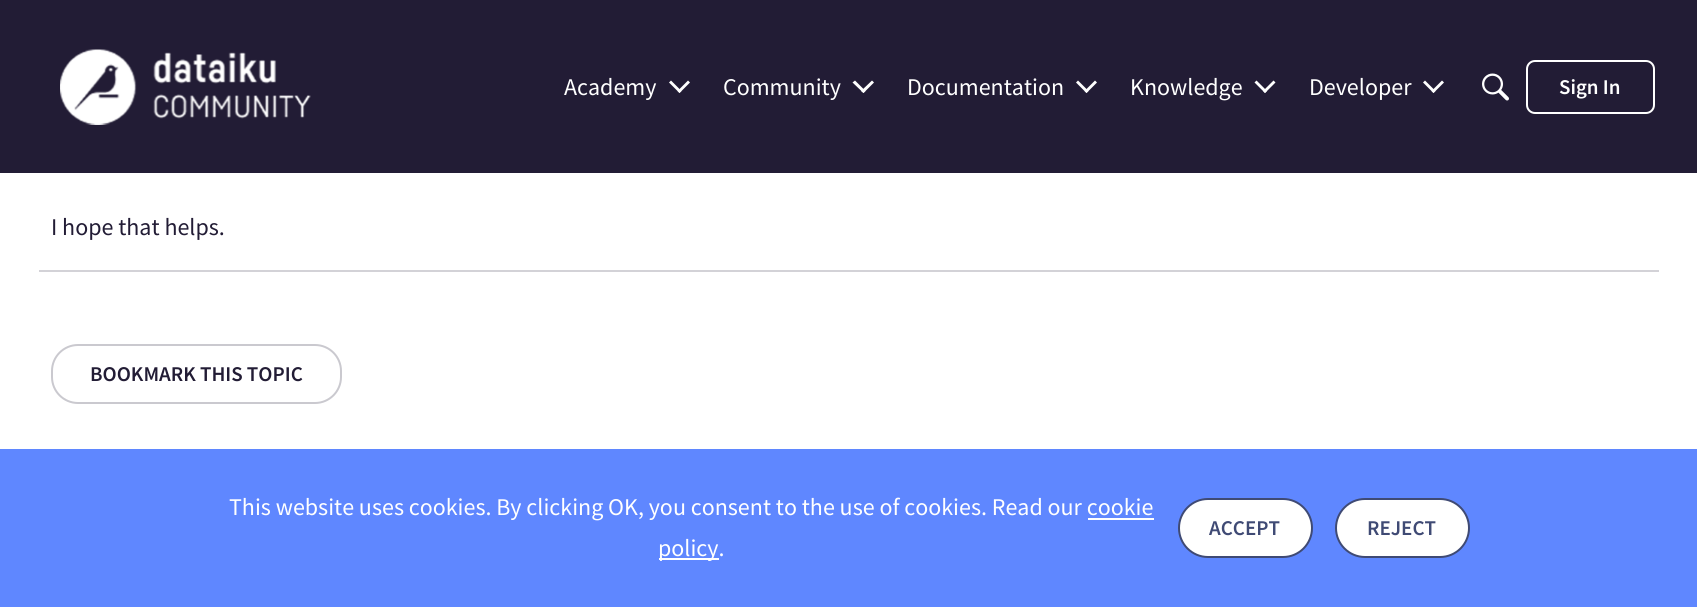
import math
import cairo



def rounded_rect(context, x, y, w, h, r):
    context.new_sub_path()
    for i, (u, v) in enumerate([(x + w - r, y + h - r), (x + r, y + h - r), (x + r, y + r), (x + w - r, y + r)]):
        context.arc(u, v, r, i * math.pi / 2, (i + 1) * math.pi / 2)
    context.close_path()


def draw_image(context, path, x, y, w, h):
    context.save()
    context.set_source_surface(cairo.ImageSurface.create_from_png(path), x, y)
    context.rectangle(x, y, w, h)
    context.fill()
    context.restore()


def draw(context):
    context.set_source_rgb(1, 1, 1)
    context.paint()
    context.set_source_rgb(34 / 255, 28 / 255, 53 / 255)
    context.rectangle(0, 0, 1697, 173)
    context.fill()
    draw_image(context, "images/1.png", 60, 49, 251, 76)
    context.set_source_rgb(1, 1, 1)
    context.new_path()
    context.move_to(688, 80.5)
    context.line_to(690, 82.5)
    context.line_to(679.5, 93)
    context.line_to(677.5, 91)
    context.close_path()
    context.fill()
    context.new_path()
    context.move_to(671, 80.5)
    context.line_to(681.5, 91)
    context.line_to(679.5, 93)
    context.line_to(669, 82.5)
    context.close_path()
    context.fill()
    context.new_path()
    context.move_to(872, 80.5)
    context.line_to(874, 82.5)
    context.line_to(863.5, 93)
    context.line_to(861, 91)
    context.close_path()
    context.fill()
    context.new_path()
    context.move_to(855, 80.5)
    context.line_to(865.5, 91)
    context.line_to(863.5, 93)
    context.line_to(852.5, 82.5)
    context.close_path()
    context.fill()
    context.new_path()
    context.move_to(1095, 80.5)
    context.line_to(1097, 82.5)
    context.line_to(1086.5, 93)
    context.line_to(1084.5, 91)
    context.close_path()
    context.fill()
    context.new_path()
    context.move_to(1078, 80.5)
    context.line_to(1088.5, 91)
    context.line_to(1086.5, 93)
    context.line_to(1076, 82.5)
    context.close_path()
    context.fill()
    context.new_path()
    context.move_to(1273.5, 80.5)
    context.line_to(1275.5, 82.5)
    context.line_to(1265, 93)
    context.line_to(1263, 91)
    context.close_path()
    context.fill()
    context.new_path()
    context.move_to(1256.5, 80.5)
    context.line_to(1267, 91)
    context.line_to(1265, 93)
    context.line_to(1254.5, 82.5)
    context.close_path()
    context.fill()
    context.new_path()
    context.move_to(1442, 80.5)
    context.line_to(1444, 82.5)
    context.line_to(1433.5, 93)
    context.line_to(1431.5, 91)
    context.close_path()
    context.fill()
    context.new_path()
    context.move_to(1425, 80.5)
    context.line_to(1435.5, 91)
    context.line_to(1433.5, 93)
    context.line_to(1423, 82.5)
    context.close_path()
    context.fill()
    draw_image(context, "images/2.png", 1482, 73, 27, 28)
    rounded_rect(context, 1527, 61, 127, 52, 8)
    context.stroke()
    context.set_source_rgb(211 / 255, 210 / 255, 215 / 255)
    context.rectangle(39, 270, 1620, 2)
    context.fill()
    rounded_rect(context, 52, 345, 289, 58, 26)
    context.set_source_rgb(202 / 255, 201 / 255, 207 / 255)
    context.stroke()
    context.set_source_rgb(95 / 255, 135 / 255, 1)
    context.rectangle(0, 449, 1697, 158)
    context.fill()
    context.set_source_rgb(1, 1, 1)
    context.rectangle(1088, 518, 66, 2)
    context.fill()
    context.rectangle(659, 558, 60, 2)
    context.fill()
    rounded_rect(context, 1179, 499, 133, 58, 29)
    context.fill_preserve()
    context.set_source_rgb(63 / 255, 74 / 255, 116 / 255)
    context.stroke()
    context.set_source_rgb(1, 1, 1)
    rounded_rect(context, 1336, 499, 133, 58, 29)
    context.fill_preserve()
    context.set_source_rgb(63 / 255, 74 / 255, 116 / 255)
    context.stroke()
    context.select_font_face("Source Sans Pro")
    context.set_font_size(24)
    context.set_source_rgb(1, 1, 1)
    context.move_to(564, 95)
    context.show_text("Academy")
    context.move_to(723, 95)
    context.show_text("Community")
    context.move_to(907, 95)
    context.show_text("Documentation")
    context.move_to(1130, 95)
    context.show_text("Knowledge")
    context.move_to(1309, 95)
    context.show_text("Developer")
    context.select_font_face("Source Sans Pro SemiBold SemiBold")
    context.set_font_size(21)
    context.move_to(1559, 94)
    context.show_text("Sign In")
    context.select_font_face("Source Sans Pro")
    context.set_font_size(24)
    context.set_source_rgb(34 / 255, 28 / 255, 53 / 255)
    context.move_to(51, 235)
    context.show_text("I hope that helps.")
    context.select_font_face("Source Sans Pro SemiBold SemiBold")
    context.set_font_size(21)
    context.move_to(90, 381)
    context.show_text("BOOKMARK THIS TOPIC")
    context.select_font_face("Source Sans Pro")
    context.set_font_size(24)
    context.set_source_rgb(1, 1, 1)
    context.move_to(229, 515)
    context.show_text("This website uses cookies. By clicking OK, you consent to the use of cookies. Read our cookie")
    context.move_to(658, 556)
    context.show_text("policy.")
    context.select_font_face("Source Sans Pro SemiBold SemiBold")
    context.set_font_size(21)
    context.set_source_rgb(63 / 255, 74 / 255, 116 / 255)
    context.move_to(1209, 535)
    context.show_text("ACCEPT")
    context.move_to(1367, 535)
    context.show_text("REJECT")


surface = cairo.ImageSurface(cairo.Format.RGB24, 1697, 607)
context = cairo.Context(surface)
options = cairo.FontOptions()
options.set_hint_metrics(cairo.HintMetrics.OFF)
options.set_hint_style(cairo.HintStyle.NONE)
context.set_font_options(options)
context.set_miter_limit(4)
draw(context)
surface.write_to_png("out.png")
